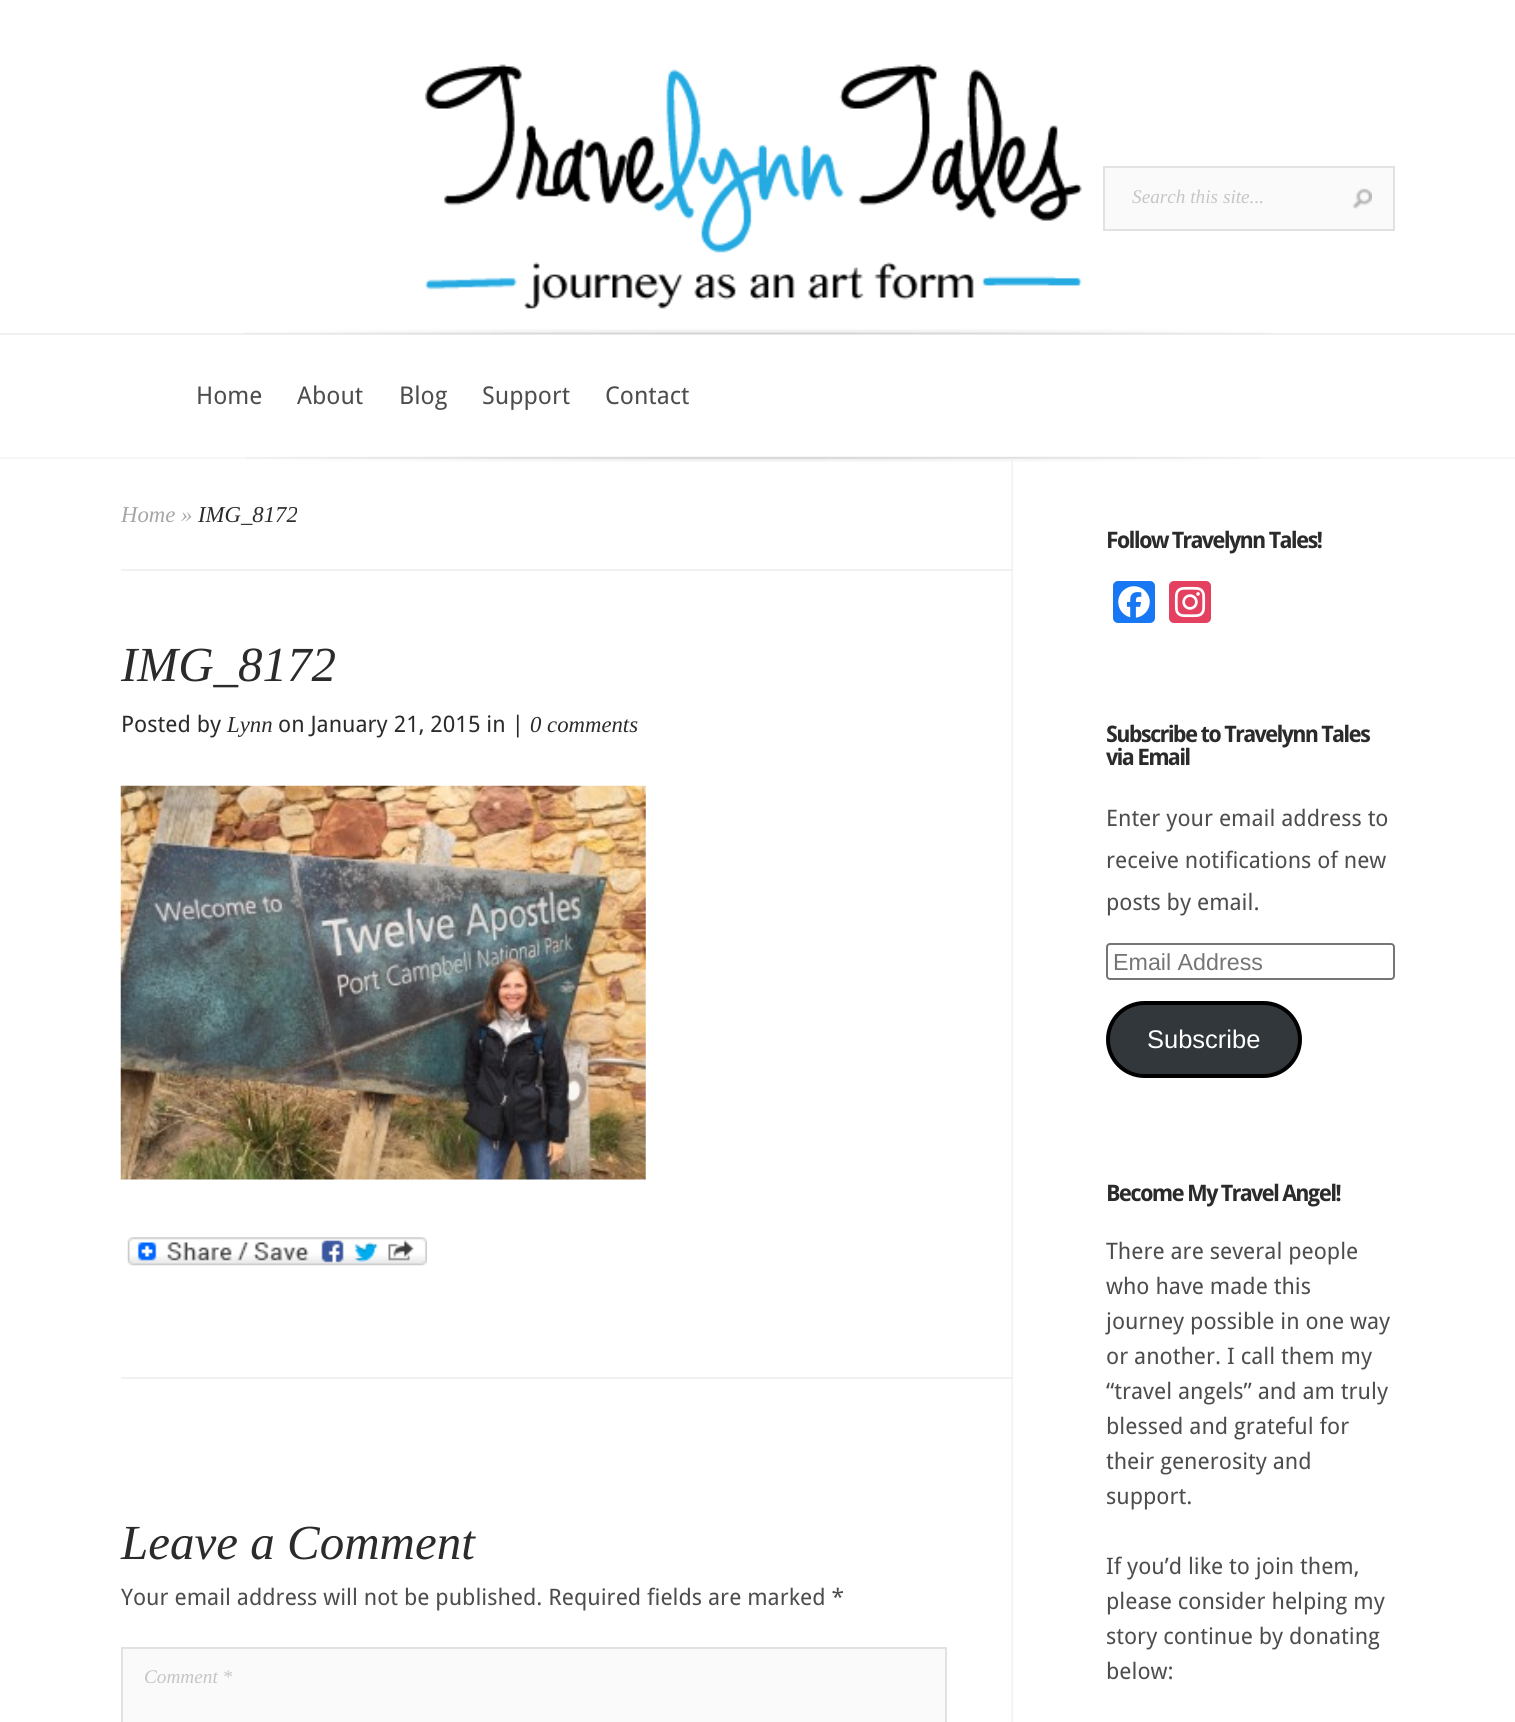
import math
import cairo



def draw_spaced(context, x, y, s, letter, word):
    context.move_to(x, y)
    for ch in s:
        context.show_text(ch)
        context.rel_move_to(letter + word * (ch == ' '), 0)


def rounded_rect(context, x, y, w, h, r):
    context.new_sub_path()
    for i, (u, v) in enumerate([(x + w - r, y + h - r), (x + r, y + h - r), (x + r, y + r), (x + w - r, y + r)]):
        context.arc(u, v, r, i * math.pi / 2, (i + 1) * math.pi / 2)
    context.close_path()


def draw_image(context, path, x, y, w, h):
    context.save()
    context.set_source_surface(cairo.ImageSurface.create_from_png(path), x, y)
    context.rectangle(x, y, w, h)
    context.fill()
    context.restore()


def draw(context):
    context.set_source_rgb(1, 1, 1)
    context.paint()
    draw_image(context, "images/1.png", 424, 64, 658, 245)
    context.set_source_rgb(241 / 255, 241 / 255, 241 / 255)
    context.rectangle(0, 333, 1515, 2)
    context.fill()
    context.set_source_rgb(246 / 255, 246 / 255, 246 / 255)
    context.rectangle(0, 457, 1515, 2)
    context.fill()
    context.set_source_rgb(250 / 255, 250 / 255, 250 / 255)
    context.rectangle(1104, 167, 290, 63)
    context.fill_preserve()
    context.set_source_rgb(226 / 255, 226 / 255, 226 / 255)
    context.stroke()
    draw_image(context, "images/2.png", 1352, 188, 20, 21)
    draw_image(context, "images/3.png", 244, 329, 1027, 6)
    draw_image(context, "images/4.png", 246, 456, 1013, 6)
    draw_image(context, "images/5.png", 1011, 458, 2, 1264)
    context.set_source_rgb(241 / 255, 241 / 255, 241 / 255)
    context.rectangle(121, 569, 891, 2)
    context.fill()
    context.rectangle(121, 1377, 891, 2)
    context.fill()
    draw_image(context, "images/6.png", 120, 785, 526, 395)
    draw_image(context, "images/7.png", 127, 1237, 300, 29)
    context.set_source_rgb(250 / 255, 250 / 255, 250 / 255)
    context.rectangle(122, 1648, 824, 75)
    context.fill_preserve()
    context.set_source_rgb(226 / 255, 226 / 255, 226 / 255)
    context.stroke()
    context.set_source_rgb(24 / 255, 119 / 255, 242 / 255)
    rounded_rect(context, 1113, 581, 42, 42, 5)
    context.fill()
    draw_image(context, "images/8.png", 1118, 586, 32, 32)
    context.set_source_rgb(228 / 255, 64 / 255, 95 / 255)
    rounded_rect(context, 1169, 581, 42, 42, 5)
    context.fill()
    draw_image(context, "images/9.png", 1174, 586, 32, 32)
    rounded_rect(context, 1107, 944, 287, 35, 3)
    context.set_source_rgb(118 / 255, 118 / 255, 118 / 255)
    context.stroke()
    context.set_source_rgb(50 / 255, 55 / 255, 60 / 255)
    rounded_rect(context, 1108, 1003, 192, 73, 36.5)
    context.fill_preserve()
    context.set_source_rgb(0, 0, 0)
    context.set_line_width(4)
    context.stroke()
    context.select_font_face("Liberation Serif", cairo.FontSlant.ITALIC)
    context.set_font_size(19.25)
    context.set_source_rgb(197 / 255, 197 / 255, 197 / 255)
    context.move_to(1132, 203)
    context.show_text("Search this site...")
    context.select_font_face("Droid Sans")
    context.set_font_size(24.5)
    context.set_source_rgb(77 / 255, 77 / 255, 77 / 255)
    context.move_to(196, 404)
    context.show_text("Home")
    context.move_to(297, 404)
    context.show_text("About")
    context.move_to(399, 404)
    context.show_text("Blog")
    context.move_to(482, 404)
    context.show_text("Support")
    context.move_to(605, 404)
    context.show_text("Contact")
    context.select_font_face("Liberation Serif", cairo.FontSlant.ITALIC)
    context.set_font_size(22.75)
    context.set_source_rgb(166 / 255, 166 / 255, 166 / 255)
    context.move_to(121, 522)
    context.show_text("Home »")
    context.set_source_rgb(43 / 255, 43 / 255, 43 / 255)
    context.move_to(198, 522)
    context.show_text("IMG_8172")
    context.set_font_size(49)
    context.move_to(121, 681)
    context.show_text("IMG_8172")
    context.select_font_face("Droid Sans")
    context.set_font_size(22.75)
    context.move_to(121, 732)
    context.show_text("Posted by")
    context.select_font_face("Liberation Serif", cairo.FontSlant.ITALIC)
    context.move_to(227, 732)
    context.show_text("Lynn")
    context.select_font_face("Droid Sans")
    context.move_to(278, 732)
    context.show_text("on January 21, 2015 in |")
    context.select_font_face("Liberation Serif", cairo.FontSlant.ITALIC)
    context.move_to(530, 732)
    context.show_text("0 comments")
    context.set_font_size(49)
    context.move_to(121, 1559)
    context.show_text("Leave a Comment")
    context.select_font_face("Droid Sans")
    context.set_font_size(22.75)
    context.set_source_rgb(77 / 255, 77 / 255, 77 / 255)
    context.move_to(121, 1605)
    context.show_text("Your email address will not be published. Required fields are marked *")
    context.select_font_face("Liberation Serif", cairo.FontSlant.ITALIC)
    context.set_font_size(19.25)
    context.set_source_rgb(197 / 255, 197 / 255, 197 / 255)
    context.move_to(144, 1683)
    context.show_text("Comment *")
    context.select_font_face("Droid Sans", cairo.FontSlant.NORMAL, cairo.FontWeight.BOLD)
    context.set_font_size(22.75)
    context.set_source_rgb(43 / 255, 43 / 255, 43 / 255)
    draw_spaced(context, 1106, 548, "Follow Travelynn Tales!", -1.75, 0)
    draw_spaced(context, 1106, 742, "Subscribe to Travelynn Tales", -1.75, 0)
    draw_spaced(context, 1106, 765, "via Email", -1.75, 0)
    context.select_font_face("Droid Sans")
    context.set_source_rgb(77 / 255, 77 / 255, 77 / 255)
    context.move_to(1106, 826)
    context.show_text("Enter your email address to")
    context.move_to(1106, 868)
    context.show_text("receive notifications of new")
    context.move_to(1106, 910)
    context.show_text("posts by email.")
    context.select_font_face("Liberation Sans")
    context.set_font_size(23.25)
    context.set_source_rgb(117 / 255, 117 / 255, 117 / 255)
    context.move_to(1113, 970)
    context.show_text("Email Address")
    context.set_font_size(25.5)
    context.set_source_rgb(1, 1, 1)
    context.move_to(1147, 1048)
    context.show_text("Subscribe")
    context.select_font_face("Droid Sans", cairo.FontSlant.NORMAL, cairo.FontWeight.BOLD)
    context.set_font_size(22.75)
    context.set_source_rgb(43 / 255, 43 / 255, 43 / 255)
    draw_spaced(context, 1106, 1201, "Become My Travel Angel!", -1.75, 0)
    context.select_font_face("Droid Sans")
    context.set_source_rgb(77 / 255, 77 / 255, 77 / 255)
    context.move_to(1106, 1259)
    context.show_text("There are several people")
    context.move_to(1106, 1294)
    context.show_text("who have made this")
    context.move_to(1106, 1329)
    context.show_text("journey possible in one way")
    context.move_to(1106, 1364)
    context.show_text("or another. I call them my")
    context.move_to(1106, 1399)
    context.show_text("“travel angels” and am truly")
    context.move_to(1106, 1434)
    context.show_text("blessed and grateful for")
    context.move_to(1106, 1469)
    context.show_text("their generosity and")
    context.move_to(1106, 1504)
    context.show_text("support.")
    context.move_to(1106, 1574)
    context.show_text("If you’d like to join them,")
    context.move_to(1106, 1609)
    context.show_text("please consider helping my")
    context.move_to(1106, 1644)
    context.show_text("story continue by donating")
    context.move_to(1106, 1679)
    context.show_text("below:")


surface = cairo.ImageSurface(cairo.Format.RGB24, 1515, 1722)
context = cairo.Context(surface)
options = cairo.FontOptions()
options.set_hint_metrics(cairo.HintMetrics.OFF)
options.set_hint_style(cairo.HintStyle.NONE)
context.set_font_options(options)
context.set_miter_limit(4)
draw(context)
surface.write_to_png("out.png")
